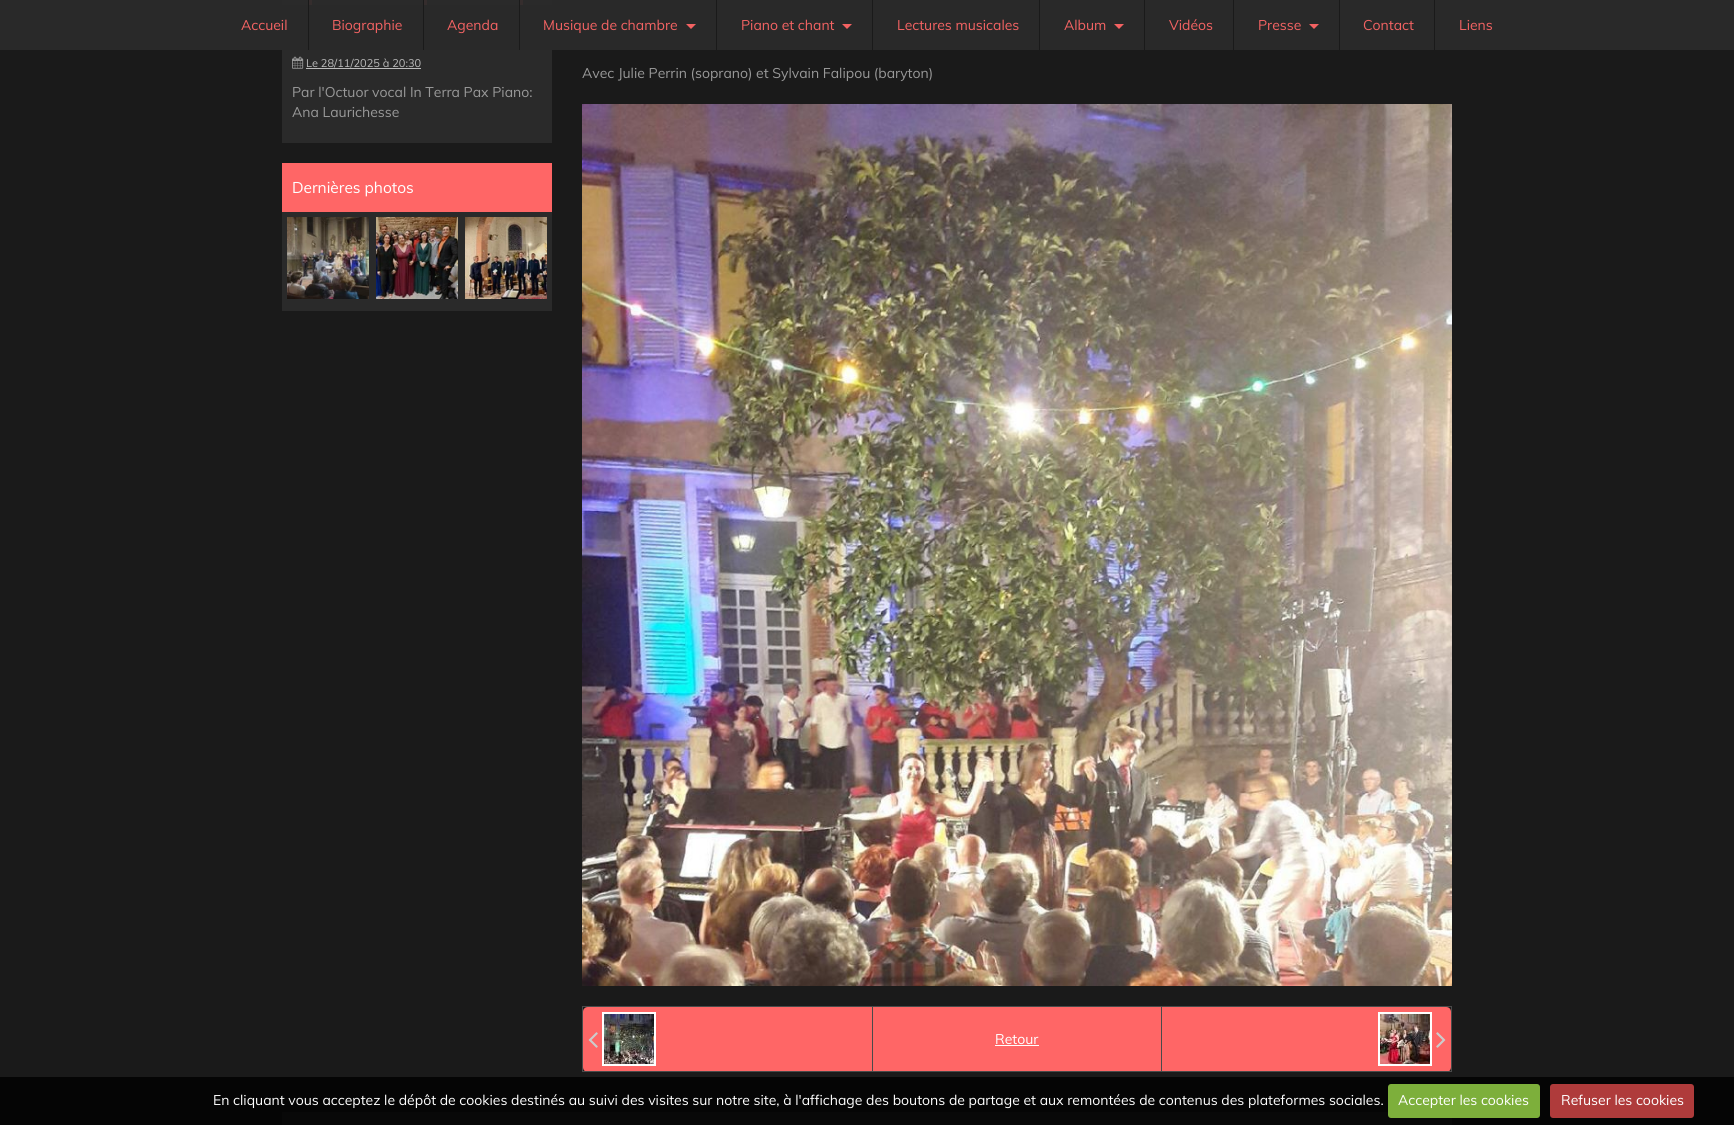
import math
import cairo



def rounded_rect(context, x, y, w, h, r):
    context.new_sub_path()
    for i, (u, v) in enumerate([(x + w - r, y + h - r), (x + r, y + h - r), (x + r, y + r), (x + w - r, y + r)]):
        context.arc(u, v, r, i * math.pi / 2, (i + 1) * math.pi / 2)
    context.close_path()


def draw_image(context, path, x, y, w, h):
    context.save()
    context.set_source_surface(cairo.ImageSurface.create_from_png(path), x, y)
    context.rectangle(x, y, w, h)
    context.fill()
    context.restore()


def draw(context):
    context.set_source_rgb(26 / 255, 26 / 255, 26 / 255)
    context.paint()
    context.set_source_rgb(5 / 255, 5 / 255, 5 / 255)
    context.rectangle(0, 1077, 1734, 48)
    context.fill()
    context.set_source_rgb(41 / 255, 41 / 255, 41 / 255)
    context.rectangle(0, 0, 1734, 50)
    context.fill()
    context.set_source_rgb(53 / 255, 45 / 255, 45 / 255)
    context.rectangle(282, 0, 270, 5)
    context.fill()
    context.set_source_rgba(26 / 255, 26 / 255, 26 / 255, 0.95)
    context.rectangle(308, 0, 1, 50)
    context.fill()
    context.set_source_rgba(42 / 255, 42 / 255, 42 / 255, 0.95)
    context.rectangle(282, 0, 26, 5)
    context.fill()
    context.set_source_rgba(26 / 255, 26 / 255, 26 / 255, 0.95)
    context.rectangle(423, 0, 1, 50)
    context.fill()
    context.set_source_rgba(42 / 255, 42 / 255, 42 / 255, 0.95)
    context.rectangle(312, 0, 111, 5)
    context.fill()
    context.rectangle(427, 0, 92, 5)
    context.fill()
    context.set_source_rgba(26 / 255, 26 / 255, 26 / 255, 0.95)
    context.rectangle(716, 0, 1, 50)
    context.fill()
    context.set_source_rgba(42 / 255, 42 / 255, 42 / 255, 0.95)
    context.rectangle(523, 0, 29, 5)
    context.fill()
    context.set_source_rgb(244 / 255, 98 / 255, 98 / 255)
    context.new_path()
    context.move_to(686, 24)
    context.line_to(696, 24)
    context.line_to(691, 29)
    context.close_path()
    context.fill()
    context.set_source_rgba(26 / 255, 26 / 255, 26 / 255, 0.95)
    context.rectangle(872, 0, 1, 50)
    context.fill()
    context.set_source_rgb(244 / 255, 98 / 255, 98 / 255)
    context.new_path()
    context.move_to(842, 24)
    context.line_to(852, 24)
    context.line_to(847, 29)
    context.close_path()
    context.fill()
    context.set_source_rgb(26 / 255, 26 / 255, 26 / 255)
    context.rectangle(1039, 0, 1, 50)
    context.fill()
    context.set_source_rgba(26 / 255, 26 / 255, 26 / 255, 0.95)
    context.rectangle(1144, 0, 1, 50)
    context.fill()
    context.set_source_rgb(244 / 255, 98 / 255, 98 / 255)
    context.new_path()
    context.move_to(1114, 24)
    context.line_to(1124, 24)
    context.line_to(1119, 29)
    context.close_path()
    context.fill()
    context.set_source_rgba(26 / 255, 26 / 255, 26 / 255, 0.95)
    context.rectangle(1233, 0, 1, 50)
    context.fill()
    context.set_source_rgb(26 / 255, 26 / 255, 26 / 255)
    context.rectangle(1339, 0, 1, 50)
    context.fill()
    context.set_source_rgb(244 / 255, 98 / 255, 98 / 255)
    context.new_path()
    context.move_to(1309, 24)
    context.line_to(1319, 24)
    context.line_to(1314, 29)
    context.close_path()
    context.fill()
    context.set_source_rgb(26 / 255, 26 / 255, 26 / 255)
    context.rectangle(1434, 0, 1, 50)
    context.fill()
    context.set_source_rgb(27 / 255, 27 / 255, 27 / 255)
    context.rectangle(519, 0, 1, 5)
    context.fill()
    context.set_source_rgb(42 / 255, 42 / 255, 42 / 255)
    context.rectangle(282, 50, 270, 93)
    context.fill()
    context.set_source_rgb(27 / 255, 27 / 255, 27 / 255)
    context.rectangle(519, 5, 1, 45)
    context.fill()
    draw_image(context, "images/1.png", 292, 56, 12, 13)
    context.set_source_rgb(187 / 255, 187 / 255, 187 / 255)
    context.rectangle(306, 68, 115, 1)
    context.fill()
    context.set_source_rgb(1, 102 / 255, 102 / 255)
    context.rectangle(282, 163, 270, 49)
    context.fill()
    context.set_source_rgb(42 / 255, 42 / 255, 42 / 255)
    context.rectangle(282, 212, 270, 99)
    context.fill()
    draw_image(context, "images/2.png", 287, 217, 82, 82)
    draw_image(context, "images/3.png", 376, 217, 82, 82)
    draw_image(context, "images/4.png", 465, 217, 82, 82)
    draw_image(context, "images/5.png", 582, 104, 870, 882)
    context.set_source_rgb(74 / 255, 74 / 255, 74 / 255)
    context.rectangle(582, 1006, 870, 1)
    context.fill()
    context.rectangle(1451, 1006, 1, 66)
    context.fill()
    context.set_source_rgb(1, 102 / 255, 102 / 255)
    context.new_path()
    context.move_to(588, 1007)
    context.line_to(872, 1007)
    context.line_to(872, 1072)
    context.line_to(588, 1072)
    context.curve_to(585, 1072, 583, 1070, 583, 1067)
    context.line_to(583, 1012)
    context.curve_to(583, 1009, 585, 1007, 588, 1007)
    context.close_path()
    context.fill()
    context.new_path()
    context.move_to(1162, 1007)
    context.line_to(1446, 1007)
    context.curve_to(1449, 1007, 1451, 1009, 1451, 1012)
    context.line_to(1451, 1067)
    context.curve_to(1451, 1070, 1449, 1072, 1446, 1072)
    context.line_to(1162, 1072)
    context.close_path()
    context.fill()
    context.set_source_rgb(74 / 255, 74 / 255, 74 / 255)
    context.rectangle(582, 1071, 870, 1)
    context.fill()
    context.rectangle(582, 1006, 1, 66)
    context.fill()
    context.rectangle(603, 1013, 52, 52)
    context.set_source_rgb(1, 1, 1)
    context.stroke()
    draw_image(context, "images/6.png", 588, 1032, 10, 16)
    draw_image(context, "images/7.png", 604, 1014, 50, 50)
    context.set_source_rgb(1, 102 / 255, 102 / 255)
    context.rectangle(873, 1007, 288, 64)
    context.fill()
    context.set_source_rgb(74 / 255, 74 / 255, 74 / 255)
    context.rectangle(872, 1006, 1, 66)
    context.fill()
    context.set_source_rgb(1, 1, 1)
    context.rectangle(995, 1045, 44, 1)
    context.fill()
    context.set_source_rgb(74 / 255, 74 / 255, 74 / 255)
    context.rectangle(1161, 1006, 1, 66)
    context.fill()
    context.rectangle(1379, 1013, 52, 52)
    context.set_source_rgb(1, 1, 1)
    context.stroke()
    draw_image(context, "images/8.png", 1380, 1014, 50, 50)
    draw_image(context, "images/9.png", 1436, 1032, 10, 16)
    context.set_source_rgb(8 / 255, 8 / 255, 8 / 255)
    context.rectangle(282, 1112, 1170, 13)
    context.fill()
    context.set_source_rgb(125 / 255, 175 / 255, 59 / 255)
    rounded_rect(context, 1388, 1084, 152, 34, 3)
    context.fill()
    context.set_source_rgb(175 / 255, 59 / 255, 59 / 255)
    rounded_rect(context, 1550, 1084, 144, 34, 3)
    context.fill()
    context.select_font_face("Muli")
    context.set_font_size(14)
    context.set_source_rgb(244 / 255, 99 / 255, 99 / 255)
    context.move_to(241, 30)
    context.show_text("Accueil")
    context.move_to(332, 30)
    context.show_text("Biographie")
    context.move_to(447, 30)
    context.show_text("Agenda")
    context.move_to(543, 30)
    context.show_text("Musique de chambre")
    context.move_to(741, 30)
    context.show_text("Piano et chant")
    context.move_to(897, 30)
    context.show_text("Lectures musicales")
    context.move_to(1064, 30)
    context.show_text("Album")
    context.move_to(1169, 30)
    context.show_text("Vidéos")
    context.move_to(1258, 30)
    context.show_text("Presse")
    context.move_to(1363, 30)
    context.show_text("Contact")
    context.move_to(1459, 30)
    context.show_text("Liens")
    context.set_font_size(11)
    context.set_source_rgb(187 / 255, 187 / 255, 187 / 255)
    context.move_to(306, 67)
    context.show_text("Le 28/11/2025 à 20:30")
    context.set_font_size(14)
    context.set_source_rgb(153 / 255, 153 / 255, 153 / 255)
    context.move_to(292, 97)
    context.show_text("Par l'Octuor vocal In Terra Pax Piano:")
    context.move_to(292, 117)
    context.show_text("Ana Laurichesse")
    context.set_font_size(15.5)
    context.set_source_rgb(1, 1, 1)
    context.move_to(292, 193)
    context.show_text("Dernières photos")
    context.set_font_size(14)
    context.set_source_rgb(153 / 255, 153 / 255, 153 / 255)
    context.move_to(582, 78)
    context.show_text("Avec Julie Perrin (soprano) et Sylvain Falipou (baryton)")
    context.set_source_rgb(1, 1, 1)
    context.move_to(995, 1044)
    context.show_text("Retour")
    context.move_to(213, 1105)
    context.show_text("En cliquant vous acceptez le dépôt de cookies destinés au suivi des visites sur notre site, à l'affichage des boutons de partage et aux remontées de contenus des plateformes sociales.")
    context.move_to(1398, 1105)
    context.show_text("Accepter les cookies")
    context.move_to(1561, 1105)
    context.show_text("Refuser les cookies")


surface = cairo.ImageSurface(cairo.Format.RGB24, 1734, 1125)
context = cairo.Context(surface)
options = cairo.FontOptions()
options.set_hint_metrics(cairo.HintMetrics.OFF)
options.set_hint_style(cairo.HintStyle.NONE)
context.set_font_options(options)
context.set_miter_limit(4)
draw(context)
surface.write_to_png("out.png")
